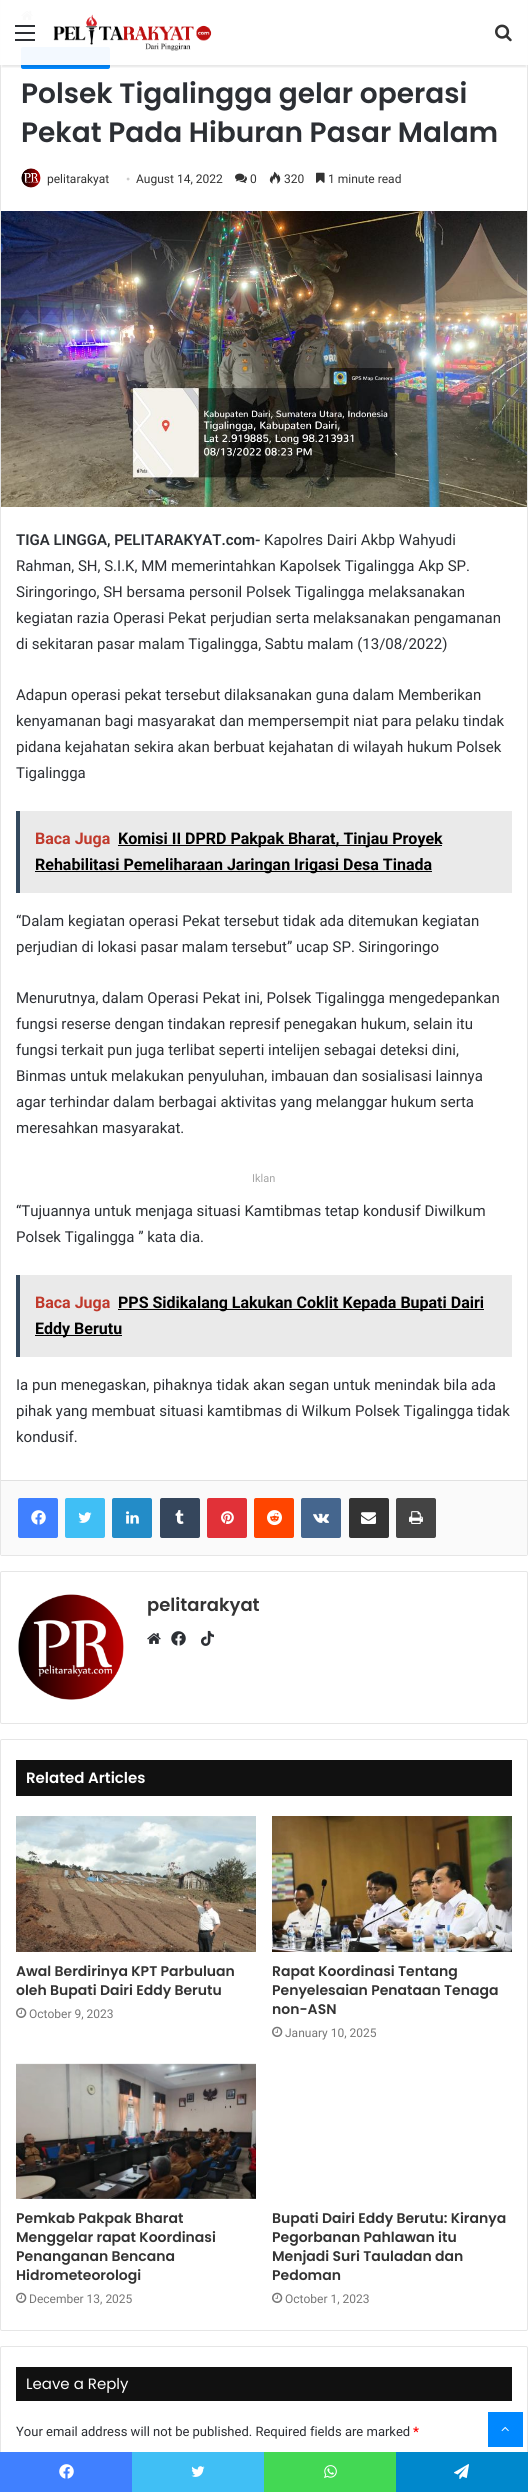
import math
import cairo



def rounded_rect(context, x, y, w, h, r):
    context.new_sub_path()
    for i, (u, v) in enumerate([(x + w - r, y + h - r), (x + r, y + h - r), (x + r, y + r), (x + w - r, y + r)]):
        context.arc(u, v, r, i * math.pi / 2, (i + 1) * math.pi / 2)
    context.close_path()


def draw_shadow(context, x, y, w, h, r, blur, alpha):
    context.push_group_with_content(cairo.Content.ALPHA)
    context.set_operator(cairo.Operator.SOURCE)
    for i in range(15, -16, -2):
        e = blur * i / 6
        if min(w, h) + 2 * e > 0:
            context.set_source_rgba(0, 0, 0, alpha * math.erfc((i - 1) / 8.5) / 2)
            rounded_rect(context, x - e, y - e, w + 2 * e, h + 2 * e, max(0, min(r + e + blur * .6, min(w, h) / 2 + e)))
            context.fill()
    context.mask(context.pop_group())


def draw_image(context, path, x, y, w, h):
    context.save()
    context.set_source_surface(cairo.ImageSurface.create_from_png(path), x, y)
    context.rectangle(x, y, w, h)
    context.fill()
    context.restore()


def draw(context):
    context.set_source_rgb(1, 1, 1)
    context.paint()
    rounded_rect(context, 0.5, -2.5, 527, 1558, 1.5)
    context.set_source_rgb(230 / 255, 230 / 255, 230 / 255)
    context.set_line_width(1)
    context.stroke()
    draw_image(context, "images/3.png", 21, 10, 12, 11)
    context.set_source_rgb(0, 136 / 255, 1)
    rounded_rect(context, 21, 47, 89, 22, 2)
    context.fill()
    context.save()
    context.rectangle(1, 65, 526, 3)
    context.clip()
    context.set_source_rgb(0, 0, 0)
    draw_shadow(context, 2, 6, 524, 61, 0, 1, 0.1)
    context.restore()
    context.set_source_rgba(1, 1, 1, 0.95)
    context.rectangle(0, 0, 528, 65)
    context.fill()
    context.set_source_rgb(44 / 255, 47 / 255, 52 / 255)
    context.rectangle(15, 32, 20, 2)
    context.fill()
    context.rectangle(15, 25, 20, 2)
    context.fill()
    context.rectangle(15, 39, 20, 2)
    context.fill()
    draw_image(context, "images/1.png", 53, 14, 159, 37)
    draw_image(context, "images/2.png", 495, 24, 17, 18)
    draw_image(context, "images/4.png", 21, 168, 20, 20)
    draw_image(context, "images/5.png", 235, 173, 12, 10)
    draw_image(context, "images/6.png", 269, 171, 12, 13)
    draw_image(context, "images/7.png", 316, 172, 9, 11)
    draw_image(context, "images/8.png", 1, 211, 526, 296)
    context.set_source_rgb(234 / 255, 234 / 255, 234 / 255)
    context.rectangle(20, 811, 492, 82)
    context.fill()
    context.set_source_rgb(52 / 255, 73 / 255, 94 / 255)
    context.rectangle(16, 811, 4, 82)
    context.fill()
    context.set_source_rgb(0, 0, 0)
    context.rectangle(118, 845, 324, 1)
    context.fill()
    context.rectangle(35, 871, 397, 1)
    context.fill()
    context.set_source_rgb(234 / 255, 234 / 255, 234 / 255)
    context.rectangle(20, 1275, 492, 82)
    context.fill()
    context.set_source_rgb(52 / 255, 73 / 255, 94 / 255)
    context.rectangle(16, 1275, 4, 82)
    context.fill()
    context.set_source_rgb(0, 0, 0)
    context.rectangle(118, 1309, 366, 1)
    context.fill()
    context.rectangle(35, 1335, 87, 1)
    context.fill()
    context.set_source_rgb(250 / 255, 250 / 255, 250 / 255)
    context.rectangle(1, 1481, 526, 74)
    context.fill()
    context.set_source_rgb(225 / 255, 225 / 255, 225 / 255)
    context.rectangle(1, 1480, 526, 1)
    context.fill()
    context.set_source_rgb(64 / 255, 128 / 255, 1)
    rounded_rect(context, 18, 1498, 40, 40, 2)
    context.fill()
    draw_image(context, "images/9.png", 31, 1510, 15, 15)
    context.set_source_rgb(64 / 255, 191 / 255, 245 / 255)
    rounded_rect(context, 65, 1498, 40, 40, 2)
    context.fill()
    draw_image(context, "images/10.png", 78, 1512, 14, 11)
    context.set_source_rgb(35 / 255, 140 / 255, 200 / 255)
    rounded_rect(context, 112, 1498, 40, 40, 2)
    context.fill()
    draw_image(context, "images/11.png", 126, 1511, 13, 13)
    context.set_source_rgb(53 / 255, 70 / 255, 92 / 255)
    rounded_rect(context, 160, 1498, 40, 40, 2)
    context.fill()
    draw_image(context, "images/12.png", 175, 1510, 9, 14)
    context.set_source_rgb(225 / 255, 49 / 255, 56 / 255)
    rounded_rect(context, 207, 1498, 40, 40, 2)
    context.fill()
    draw_image(context, "images/13.png", 221, 1511, 13, 13)
    context.set_source_rgb(1, 69 / 255, 0)
    rounded_rect(context, 254, 1498, 40, 40, 2)
    context.fill()
    draw_image(context, "images/14.png", 267, 1510, 15, 16)
    context.set_source_rgb(69 / 255, 102 / 255, 142 / 255)
    rounded_rect(context, 301, 1498, 40, 40, 2)
    context.fill()
    draw_image(context, "images/15.png", 313, 1513, 16, 10)
    context.set_source_rgb(51 / 255, 51 / 255, 51 / 255)
    rounded_rect(context, 349, 1498, 40, 40, 2)
    context.fill()
    draw_image(context, "images/16.png", 361, 1512, 15, 12)
    context.set_source_rgb(68 / 255, 68 / 255, 68 / 255)
    rounded_rect(context, 396, 1498, 40, 40, 2)
    context.fill()
    draw_image(context, "images/17.png", 409, 1511, 14, 13)
    rounded_rect(context, 0.5, 1571.5, 527, 152, 1.5)
    context.set_source_rgb(230 / 255, 230 / 255, 230 / 255)
    context.stroke()
    draw_image(context, "images/18.png", 18, 1594, 106, 106)
    draw_image(context, "images/19.png", 147, 1633, 14, 11)
    draw_image(context, "images/20.png", 171, 1631, 15, 15)
    draw_image(context, "images/21.png", 201, 1630, 13, 16)
    rounded_rect(context, 0.5, 1739.5, 527, 591, 1.5)
    context.stroke()
    context.set_source_rgb(17 / 255, 17 / 255, 17 / 255)
    context.rectangle(16, 1760, 496, 36)
    context.fill()
    draw_image(context, "images/22.png", 16, 1816, 240, 136)
    draw_image(context, "images/23.png", 16, 2007, 11, 11)
    draw_image(context, "images/24.png", 272, 1816, 240, 136)
    draw_image(context, "images/23.png", 272, 2026, 11, 11)
    draw_image(context, "images/25.png", 16, 2063, 240, 136)
    draw_image(context, "images/23.png", 16, 2292, 11, 11)
    draw_image(context, "images/23.png", 272, 2292, 11, 11)
    rounded_rect(context, 0.5, 2346.5, 527, 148, 1.5)
    context.set_source_rgb(230 / 255, 230 / 255, 230 / 255)
    context.stroke()
    context.set_source_rgb(17 / 255, 17 / 255, 17 / 255)
    context.rectangle(16, 2367, 496, 34)
    context.fill()
    context.set_source_rgb(0, 136 / 255, 1)
    context.rectangle(488, 2412, 35, 35)
    context.fill()
    draw_image(context, "images/26.png", 501, 2426, 8, 6)
    context.set_source_rgb(64 / 255, 128 / 255, 1)
    context.rectangle(0, 2452, 132, 40)
    context.fill()
    draw_image(context, "images/9.png", 59, 2464, 15, 15)
    context.set_source_rgb(64 / 255, 191 / 255, 245 / 255)
    context.rectangle(132, 2452, 132, 40)
    context.fill()
    draw_image(context, "images/10.png", 191, 2466, 14, 11)
    context.set_source_rgb(67 / 255, 216 / 255, 84 / 255)
    context.rectangle(264, 2452, 132, 40)
    context.fill()
    draw_image(context, "images/27.png", 324, 2465, 13, 13)
    context.set_source_rgb(0, 136 / 255, 204 / 255)
    context.rectangle(396, 2452, 132, 40)
    context.fill()
    draw_image(context, "images/28.png", 454, 2464, 15, 15)
    context.select_font_face("Poppins SemiBold")
    context.set_font_size(28)
    context.set_source_rgb(44 / 255, 47 / 255, 52 / 255)
    context.move_to(21, 103)
    context.show_text("Polsek Tigalingga gelar operasi")
    context.move_to(21, 142)
    context.show_text("Pekat Pada Hiburan Pasar Malam")
    context.select_font_face("Roboto")
    context.set_font_size(12)
    context.set_source_rgb(51 / 255, 51 / 255, 51 / 255)
    context.move_to(47, 183)
    context.show_text("pelitarakyat")
    context.select_font_face("Liberation Serif")
    context.set_source_rgb(204 / 255, 204 / 255, 204 / 255)
    context.move_to(126, 183)
    context.show_text("•")
    context.select_font_face("Roboto")
    context.set_source_rgb(51 / 255, 51 / 255, 51 / 255)
    context.move_to(136, 183)
    context.show_text("August 14, 2022")
    context.move_to(250, 183)
    context.show_text("0")
    context.move_to(284, 183)
    context.show_text("320")
    context.move_to(328, 183)
    context.show_text("1 minute read")
    context.select_font_face("Roboto SemiBold")
    context.set_font_size(15)
    context.set_source_rgb(44 / 255, 47 / 255, 52 / 255)
    context.move_to(16, 545)
    context.show_text("TIGA LINGGA, PELITARAKYAT.com-")
    context.select_font_face("Roboto")
    context.move_to(264, 545)
    context.show_text("Kapolres Dairi Akbp Wahyudi")
    context.move_to(16, 571)
    context.show_text("Rahman, SH, S.I.K, MM memerintahkan Kapolsek Tigalingga Akp SP.")
    context.move_to(16, 597)
    context.show_text("Siringoringo, SH bersama personil Polsek Tigalingga melaksanakan")
    context.move_to(16, 623)
    context.show_text("kegiatan razia Operasi Pekat perjudian serta melaksanakan pengamanan")
    context.move_to(16, 649)
    context.show_text("di sekitaran pasar malam Tigalingga, Sabtu malam (13/08/2022)")
    context.move_to(16, 700)
    context.show_text("Adapun operasi pekat tersebut dilaksanakan guna dalam Memberikan")
    context.move_to(16, 726)
    context.show_text("kenyamanan bagi masyarakat dan mempersempit niat para pelaku tindak")
    context.move_to(16, 752)
    context.show_text("pidana kejahatan sekira akan berbuat kejahatan di wilayah hukum Polsek")
    context.move_to(16, 778)
    context.show_text("Tigalingga")
    context.select_font_face("Roboto", cairo.FontSlant.NORMAL, cairo.FontWeight.BOLD)
    context.set_font_size(16)
    context.set_source_rgb(192 / 255, 57 / 255, 43 / 255)
    context.move_to(35, 844)
    context.show_text("Baca Juga")
    context.set_source_rgb(0, 0, 0)
    context.move_to(118, 844)
    context.show_text("Komisi II DPRD Pakpak Bharat, Tinjau Proyek")
    context.move_to(35, 870)
    context.show_text("Rehabilitasi Pemeliharaan Jaringan Irigasi Desa Tinada")
    context.select_font_face("Roboto")
    context.set_font_size(15)
    context.set_source_rgb(44 / 255, 47 / 255, 52 / 255)
    context.move_to(16, 926)
    context.show_text("“Dalam kegiatan operasi Pekat tersebut tidak ada ditemukan kegiatan")
    context.move_to(16, 952)
    context.show_text("perjudian di lokasi pasar malam tersebut” ucap SP. Siringoringo")
    context.move_to(16, 1003)
    context.show_text("Menurutnya, dalam Operasi Pekat ini, Polsek Tigalingga mengedepankan")
    context.move_to(16, 1029)
    context.show_text("fungsi reserse dengan tindakan represif penegakan hukum, selain itu")
    context.move_to(16, 1055)
    context.show_text("fungsi terkait pun juga terlibat seperti intelijen sebagai deteksi dini,")
    context.move_to(16, 1081)
    context.show_text("Binmas untuk melakukan penyuluhan, imbauan dan sosialisasi lainnya")
    context.move_to(16, 1107)
    context.show_text("agar terhindar dalam berbagai aktivitas yang melanggar hukum serta")
    context.move_to(16, 1133)
    context.show_text("meresahkan masyarakat.")
    context.set_font_size(11)
    context.set_source_rgb(165 / 255, 165 / 255, 165 / 255)
    context.move_to(252, 1182)
    context.show_text("Iklan")
    context.set_font_size(15)
    context.set_source_rgb(44 / 255, 47 / 255, 52 / 255)
    context.move_to(16, 1216)
    context.show_text("“Tujuannya untuk menjaga situasi Kamtibmas tetap kondusif Diwilkum")
    context.move_to(16, 1242)
    context.show_text("Polsek Tigalingga ” kata dia.")
    context.select_font_face("Roboto", cairo.FontSlant.NORMAL, cairo.FontWeight.BOLD)
    context.set_font_size(16)
    context.set_source_rgb(192 / 255, 57 / 255, 43 / 255)
    context.move_to(35, 1308)
    context.show_text("Baca Juga")
    context.set_source_rgb(0, 0, 0)
    context.move_to(118, 1308)
    context.show_text("PPS Sidikalang Lakukan Coklit Kepada Bupati Dairi")
    context.move_to(35, 1334)
    context.show_text("Eddy Berutu")
    context.select_font_face("Roboto")
    context.set_font_size(15)
    context.set_source_rgb(44 / 255, 47 / 255, 52 / 255)
    context.move_to(16, 1390)
    context.show_text("Ia pun menegaskan, pihaknya tidak akan segan untuk menindak bila ada")
    context.move_to(16, 1416)
    context.show_text("pihak yang membuat situasi kamtibmas di Wilkum Polsek Tigalingga tidak")
    context.move_to(16, 1442)
    context.show_text("kondusif.")
    context.select_font_face("Poppins SemiBold")
    context.set_font_size(18)
    context.set_source_rgb(51 / 255, 51 / 255, 51 / 255)
    context.move_to(147, 1611)
    context.show_text("pelitarakyat")
    context.set_font_size(15)
    context.set_source_rgb(1, 1, 1)
    context.move_to(26, 1783)
    context.show_text("Related Articles")
    context.set_font_size(14)
    context.set_source_rgb(51 / 255, 51 / 255, 51 / 255)
    context.move_to(16, 1976)
    context.show_text("Awal Berdirinya KPT Parbuluan")
    context.move_to(16, 1995)
    context.show_text("oleh Bupati Dairi Eddy Berutu")
    context.select_font_face("Roboto")
    context.set_font_size(12)
    context.set_source_rgb(118 / 255, 118 / 255, 118 / 255)
    context.move_to(29, 2018)
    context.show_text("October 9, 2023")
    context.select_font_face("Poppins SemiBold")
    context.set_font_size(14)
    context.set_source_rgb(51 / 255, 51 / 255, 51 / 255)
    context.move_to(272, 1976)
    context.show_text("Rapat Koordinasi Tentang")
    context.move_to(272, 1995)
    context.show_text("Penyelesaian Penataan Tenaga")
    context.move_to(272, 2014)
    context.show_text("non-ASN")
    context.select_font_face("Roboto")
    context.set_font_size(12)
    context.set_source_rgb(118 / 255, 118 / 255, 118 / 255)
    context.move_to(285, 2037)
    context.show_text("January 10, 2025")
    context.select_font_face("Poppins SemiBold")
    context.set_font_size(14)
    context.set_source_rgb(51 / 255, 51 / 255, 51 / 255)
    context.move_to(16, 2223)
    context.show_text("Pemkab Pakpak Bharat")
    context.move_to(16, 2242)
    context.show_text("Menggelar rapat Koordinasi")
    context.move_to(16, 2261)
    context.show_text("Penanganan Bencana")
    context.move_to(16, 2280)
    context.show_text("Hidrometeorologi")
    context.select_font_face("Roboto")
    context.set_font_size(12)
    context.set_source_rgb(118 / 255, 118 / 255, 118 / 255)
    context.move_to(29, 2303)
    context.show_text("December 13, 2025")
    context.select_font_face("Poppins SemiBold")
    context.set_font_size(14)
    context.set_source_rgb(51 / 255, 51 / 255, 51 / 255)
    context.move_to(272, 2223)
    context.show_text("Bupati Dairi Eddy Berutu: Kiranya")
    context.move_to(272, 2242)
    context.show_text("Pegorbanan Pahlawan itu")
    context.move_to(272, 2261)
    context.show_text("Menjadi Suri Tauladan dan")
    context.move_to(272, 2280)
    context.show_text("Pedoman")
    context.select_font_face("Roboto")
    context.set_font_size(12)
    context.set_source_rgb(118 / 255, 118 / 255, 118 / 255)
    context.move_to(285, 2303)
    context.show_text("October 1, 2023")
    context.select_font_face("Poppins")
    context.set_font_size(15)
    context.set_source_rgb(1, 1, 1)
    context.move_to(26, 2389)
    context.show_text("Leave a Reply")
    context.select_font_face("Roboto")
    context.set_font_size(13)
    context.set_source_rgb(44 / 255, 47 / 255, 52 / 255)
    context.move_to(16, 2436)
    context.show_text("Your email address will not be published. Required fields are marked")
    context.select_font_face("Roboto", cairo.FontSlant.NORMAL, cairo.FontWeight.BOLD)
    context.set_source_rgb(1, 0, 0)
    context.move_to(413, 2436)
    context.show_text("*")


surface = cairo.ImageSurface(cairo.Format.RGB24, 528, 2492)
context = cairo.Context(surface)
options = cairo.FontOptions()
options.set_hint_metrics(cairo.HintMetrics.OFF)
options.set_hint_style(cairo.HintStyle.NONE)
context.set_font_options(options)
context.set_miter_limit(4)
draw(context)
surface.write_to_png("out.png")
